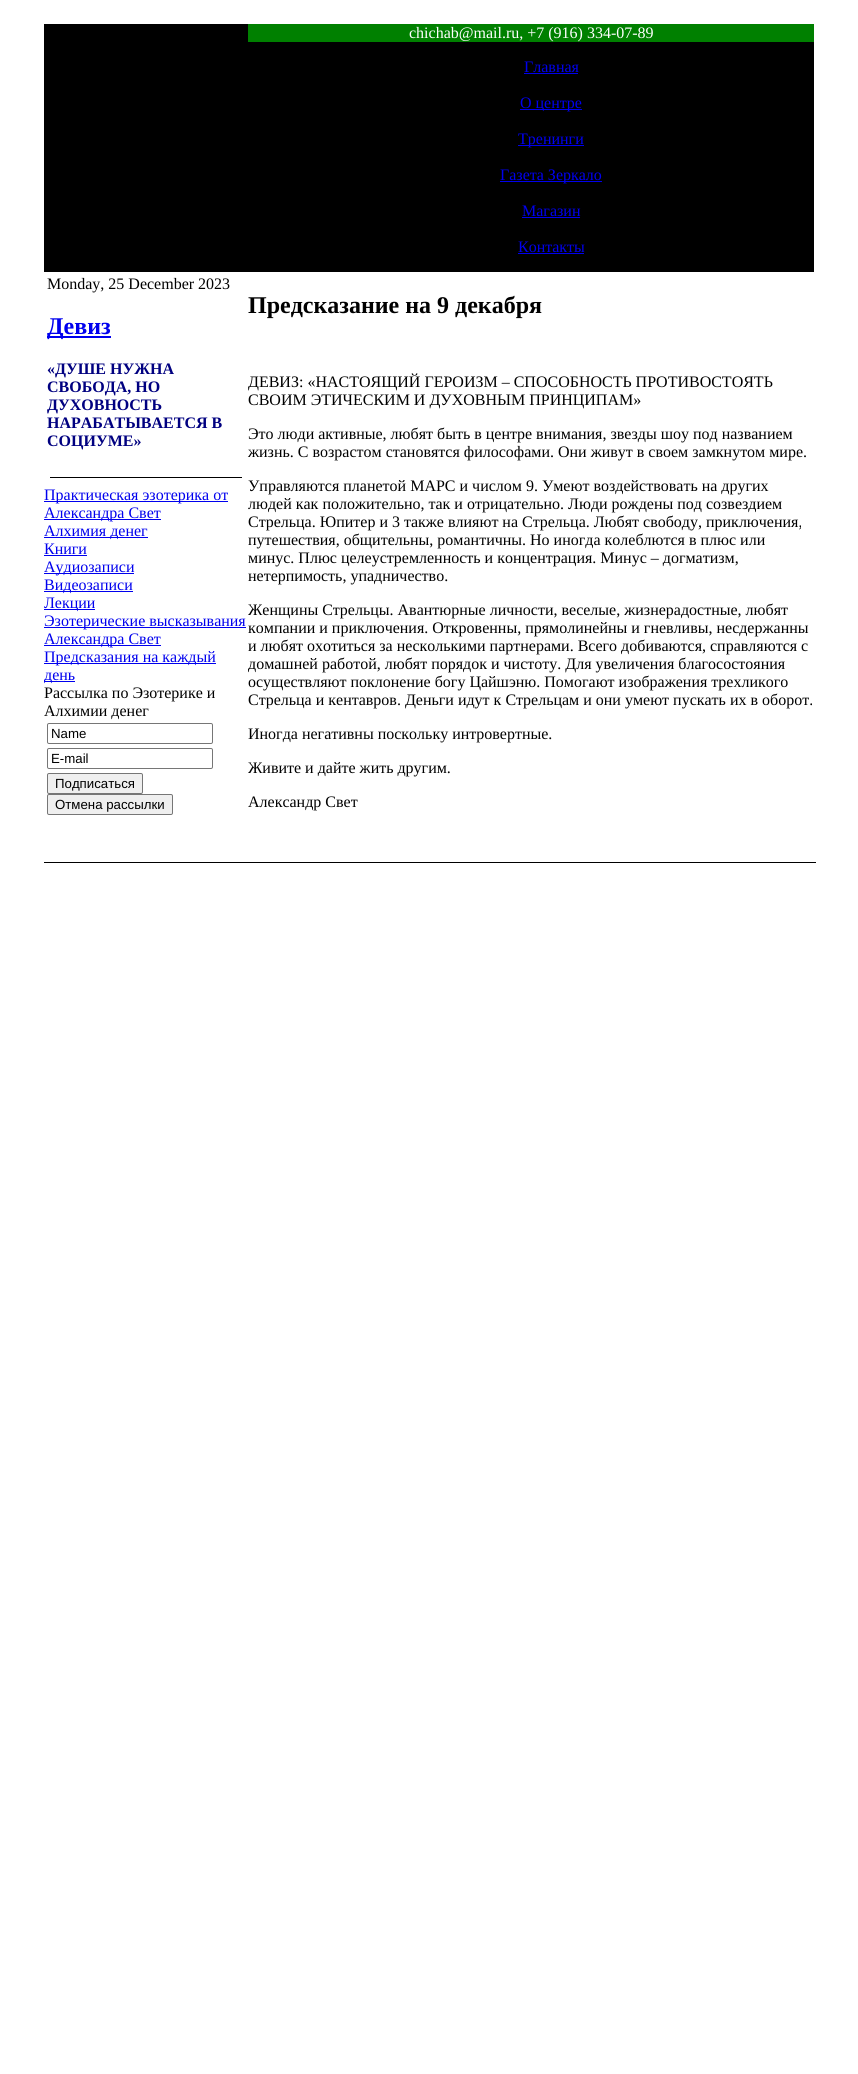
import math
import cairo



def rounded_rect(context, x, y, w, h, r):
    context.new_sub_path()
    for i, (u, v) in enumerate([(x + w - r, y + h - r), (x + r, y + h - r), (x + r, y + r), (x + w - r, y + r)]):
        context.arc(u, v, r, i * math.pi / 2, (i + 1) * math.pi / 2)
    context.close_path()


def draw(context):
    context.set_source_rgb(1, 1, 1)
    context.paint()
    context.set_source_rgb(0, 0, 0)
    context.rectangle(44, 24, 204, 248)
    context.fill()
    context.set_source_rgb(0, 128 / 255, 0)
    context.rectangle(248, 24, 566, 18)
    context.fill()
    context.set_source_rgb(0, 0, 0)
    context.rectangle(248, 42, 566, 230)
    context.fill()
    context.set_source_rgb(0, 0, 238 / 255)
    context.rectangle(524, 73, 54, 1)
    context.fill()
    context.rectangle(520, 109, 62, 1)
    context.fill()
    context.rectangle(518, 145, 66, 1)
    context.fill()
    context.rectangle(500, 181, 102, 1)
    context.fill()
    context.rectangle(522, 217, 58, 1)
    context.fill()
    context.rectangle(518, 253, 66, 1)
    context.fill()
    context.rectangle(47, 336, 64, 2)
    context.fill()
    context.set_source_rgb(0, 0, 0)
    context.rectangle(50, 477, 192, 1)
    context.fill()
    context.set_source_rgb(0, 0, 238 / 255)
    context.rectangle(44, 501, 184, 1)
    context.fill()
    context.rectangle(44, 519, 117, 1)
    context.fill()
    context.rectangle(44, 537, 104, 1)
    context.fill()
    context.rectangle(44, 555, 43, 1)
    context.fill()
    context.rectangle(44, 573, 90, 1)
    context.fill()
    context.rectangle(44, 591, 89, 1)
    context.fill()
    context.rectangle(44, 609, 51, 1)
    context.fill()
    context.rectangle(44, 627, 202, 1)
    context.fill()
    context.rectangle(44, 645, 117, 1)
    context.fill()
    context.rectangle(44, 663, 172, 1)
    context.fill()
    context.rectangle(44, 681, 31, 1)
    context.fill()
    rounded_rect(context, 47.5, 723.5, 165, 20, 1.5)
    context.set_source_rgb(118 / 255, 118 / 255, 118 / 255)
    context.set_line_width(1)
    context.stroke()
    rounded_rect(context, 47.5, 748.5, 165, 20, 1.5)
    context.stroke()
    context.set_source_rgb(239 / 255, 239 / 255, 239 / 255)
    rounded_rect(context, 47.5, 773.5, 95, 20, 1.5)
    context.fill_preserve()
    context.set_source_rgb(118 / 255, 118 / 255, 118 / 255)
    context.stroke()
    context.set_source_rgb(239 / 255, 239 / 255, 239 / 255)
    rounded_rect(context, 47.5, 794.5, 125, 20, 1.5)
    context.fill_preserve()
    context.set_source_rgb(118 / 255, 118 / 255, 118 / 255)
    context.stroke()
    context.set_source_rgb(0, 0, 0)
    context.rectangle(44, 862, 772, 1)
    context.fill()
    context.select_font_face("Liberation Serif")
    context.set_font_size(16)
    context.set_source_rgb(1, 1, 1)
    context.move_to(409, 38)
    context.show_text("chichab@mail.ru, +7 (916) 334-07-89")
    context.set_source_rgb(0, 0, 238 / 255)
    context.move_to(524, 72)
    context.show_text("Главная")
    context.move_to(520, 108)
    context.show_text("О центре")
    context.move_to(518, 144)
    context.show_text("Тренинги")
    context.move_to(500, 180)
    context.show_text("Газета Зеркало")
    context.move_to(522, 216)
    context.show_text("Магазин")
    context.move_to(518, 252)
    context.show_text("Контакты")
    context.set_source_rgb(0, 0, 0)
    context.move_to(47, 289)
    context.show_text("Monday, 25 December 2023")
    context.select_font_face("Liberation Serif", cairo.FontSlant.NORMAL, cairo.FontWeight.BOLD)
    context.set_font_size(24)
    context.set_source_rgb(0, 0, 238 / 255)
    context.move_to(47, 334)
    context.show_text("Девиз")
    context.set_font_size(16)
    context.set_source_rgb(0, 0, 128 / 255)
    context.move_to(47, 374)
    context.show_text("«ДУШЕ НУЖНА")
    context.move_to(47, 392)
    context.show_text("СВОБОДА, НО")
    context.move_to(47, 410)
    context.show_text("ДУХОВНОСТЬ")
    context.move_to(47, 428)
    context.show_text("НАРАБАТЫВАЕТСЯ В")
    context.move_to(47, 446)
    context.show_text("СОЦИУМЕ»")
    context.select_font_face("Liberation Serif")
    context.set_source_rgb(0, 0, 238 / 255)
    context.move_to(44, 500)
    context.show_text("Практическая эзотерика от")
    context.move_to(44, 518)
    context.show_text("Александра Свет")
    context.move_to(44, 536)
    context.show_text("Алхимия денег")
    context.move_to(44, 554)
    context.show_text("Книги")
    context.move_to(44, 572)
    context.show_text("Аудиозаписи")
    context.move_to(44, 590)
    context.show_text("Видеозаписи")
    context.move_to(44, 608)
    context.show_text("Лекции")
    context.move_to(44, 626)
    context.show_text("Эзотерические высказывания")
    context.move_to(44, 644)
    context.show_text("Александра Свет")
    context.move_to(44, 662)
    context.show_text("Предсказания на каждый")
    context.move_to(44, 680)
    context.show_text("день")
    context.set_source_rgb(0, 0, 0)
    context.move_to(44, 698)
    context.show_text("Рассылка по Эзотерике и")
    context.move_to(44, 716)
    context.show_text("Алхимии денег")
    context.select_font_face("Liberation Sans")
    context.set_font_size(13.25)
    context.move_to(51, 738)
    context.show_text("Name")
    context.move_to(51, 763)
    context.show_text("E-mail")
    context.move_to(55, 788)
    context.show_text("Подписаться")
    context.move_to(55, 809)
    context.show_text("Отмена рассылки")
    context.select_font_face("Liberation Serif", cairo.FontSlant.NORMAL, cairo.FontWeight.BOLD)
    context.set_font_size(24)
    context.move_to(248, 313)
    context.show_text("Предсказание на 9 декабря")
    context.select_font_face("Liberation Serif")
    context.set_font_size(16)
    context.move_to(248, 387)
    context.show_text("ДЕВИЗ: «НАСТОЯЩИЙ ГЕРОИЗМ – СПОСОБНОСТЬ ПРОТИВОСТОЯТЬ")
    context.move_to(248, 405)
    context.show_text("СВОИМ ЭТИЧЕСКИМ И ДУХОВНЫМ ПРИНЦИПАМ»")
    context.move_to(248, 439)
    context.show_text("Это люди активные, любят быть в центре внимания, звезды шоу под названием")
    context.move_to(248, 457)
    context.show_text("жизнь. С возрастом становятся философами. Они живут в своем замкнутом мире.")
    context.move_to(248, 491)
    context.show_text("Управляются планетой МАРС и числом 9. Умеют воздействовать на других")
    context.move_to(248, 509)
    context.show_text("людей как положительно, так и отрицательно. Люди рождены под созвездием")
    context.move_to(248, 527)
    context.show_text("Стрельца. Юпитер и 3 также влияют на Стрельца. Любят свободу, приключения,")
    context.move_to(248, 545)
    context.show_text("путешествия, общительны, романтичны. Но иногда колеблются в плюс или")
    context.move_to(248, 563)
    context.show_text("минус. Плюс целеустремленность и концентрация. Минус – догматизм,")
    context.move_to(248, 581)
    context.show_text("нетерпимость, упадничество.")
    context.move_to(248, 615)
    context.show_text("Женщины Стрельцы. Авантюрные личности, веселые, жизнерадостные, любят")
    context.move_to(248, 633)
    context.show_text("компании и приключения. Откровенны, прямолинейны и гневливы, несдержанны")
    context.move_to(248, 651)
    context.show_text("и любят охотиться за несколькими партнерами. Всего добиваются, справляются с")
    context.move_to(248, 669)
    context.show_text("домашней работой, любят порядок и чистоту. Для увеличения благосостояния")
    context.move_to(248, 687)
    context.show_text("осуществляют поклонение богу Цайшэню. Помогают изображения трехликого")
    context.move_to(248, 705)
    context.show_text("Стрельца и кентавров. Деньги идут к Стрельцам и они умеют пускать их в оборот.")
    context.move_to(248, 739)
    context.show_text("Иногда негативны поскольку интровертные.")
    context.move_to(248, 773)
    context.show_text("Живите и дайте жить другим.")
    context.move_to(248, 807)
    context.show_text("Александр Свет")


surface = cairo.ImageSurface(cairo.Format.RGB24, 858, 2074)
context = cairo.Context(surface)
options = cairo.FontOptions()
options.set_hint_metrics(cairo.HintMetrics.OFF)
options.set_hint_style(cairo.HintStyle.NONE)
context.set_font_options(options)
context.set_miter_limit(4)
draw(context)
surface.write_to_png("out.png")
